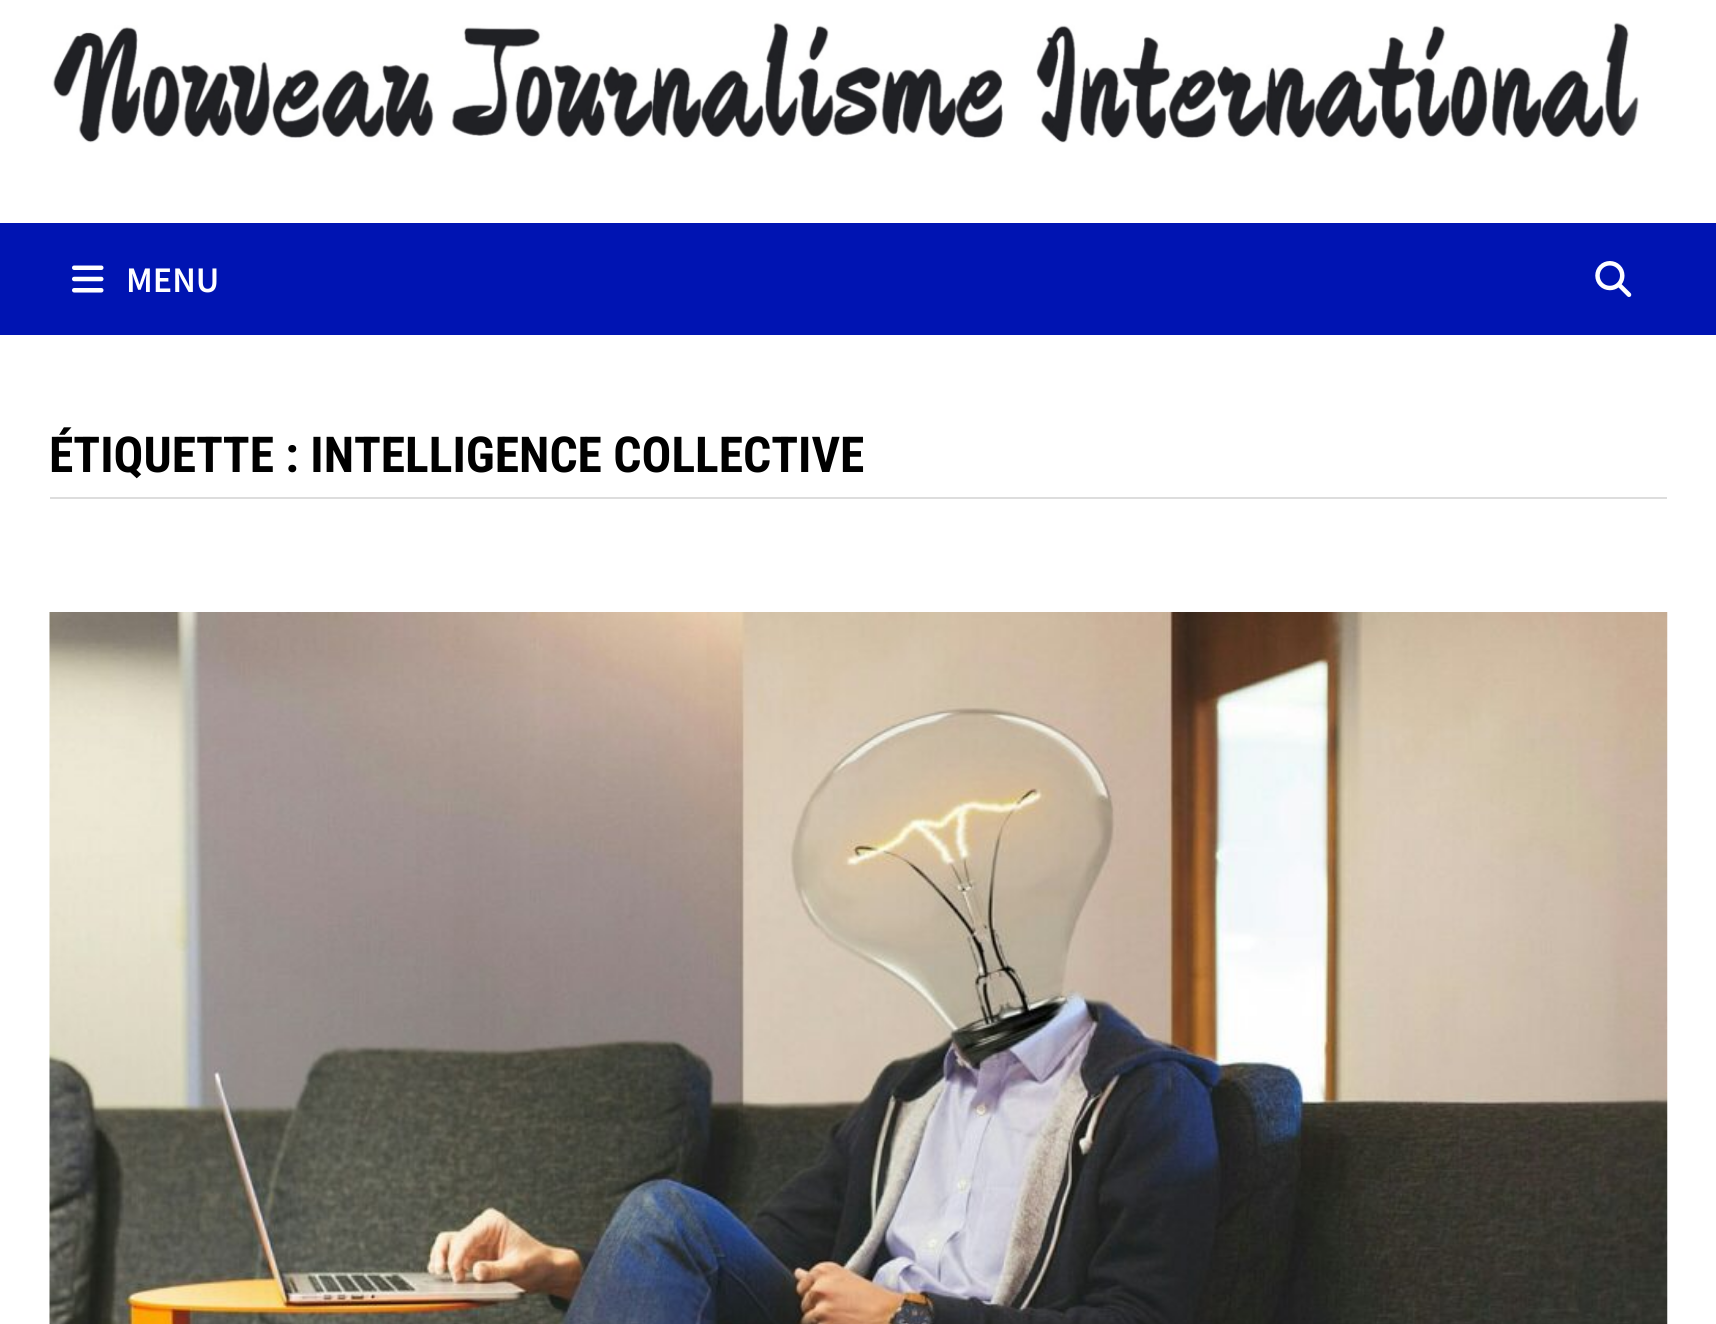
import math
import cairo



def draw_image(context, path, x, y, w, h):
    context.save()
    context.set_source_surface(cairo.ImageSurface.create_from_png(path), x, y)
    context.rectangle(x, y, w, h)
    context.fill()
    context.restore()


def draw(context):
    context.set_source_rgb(1, 1, 1)
    context.paint()
    draw_image(context, "images/1.png", 52, 22, 1587, 121)
    context.set_source_rgb(0, 20 / 255, 178 / 255)
    context.rectangle(0, 223, 1716, 112)
    context.fill()
    draw_image(context, "images/2.png", 72, 265, 32, 28)
    draw_image(context, "images/3.png", 1595, 261, 37, 36)
    context.set_source_rgb(221 / 255, 221 / 255, 221 / 255)
    context.rectangle(50, 497, 1617, 2)
    context.fill()
    draw_image(context, "images/4.png", 49, 612, 1619, 712)
    context.select_font_face("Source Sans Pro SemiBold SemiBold")
    context.set_font_size(36)
    context.set_source_rgb(1, 1, 1)
    context.move_to(126, 292)
    context.show_text("MENU")
    context.select_font_face("Roboto Condensed", cairo.FontSlant.NORMAL, cairo.FontWeight.BOLD)
    context.set_font_size(49.5)
    context.set_source_rgb(0, 0, 0)
    context.move_to(49, 472)
    context.show_text("ÉTIQUETTE : INTELLIGENCE COLLECTIVE")


surface = cairo.ImageSurface(cairo.Format.RGB24, 1716, 1324)
context = cairo.Context(surface)
options = cairo.FontOptions()
options.set_hint_metrics(cairo.HintMetrics.OFF)
options.set_hint_style(cairo.HintStyle.NONE)
context.set_font_options(options)
context.set_miter_limit(4)
draw(context)
surface.write_to_png("out.png")
